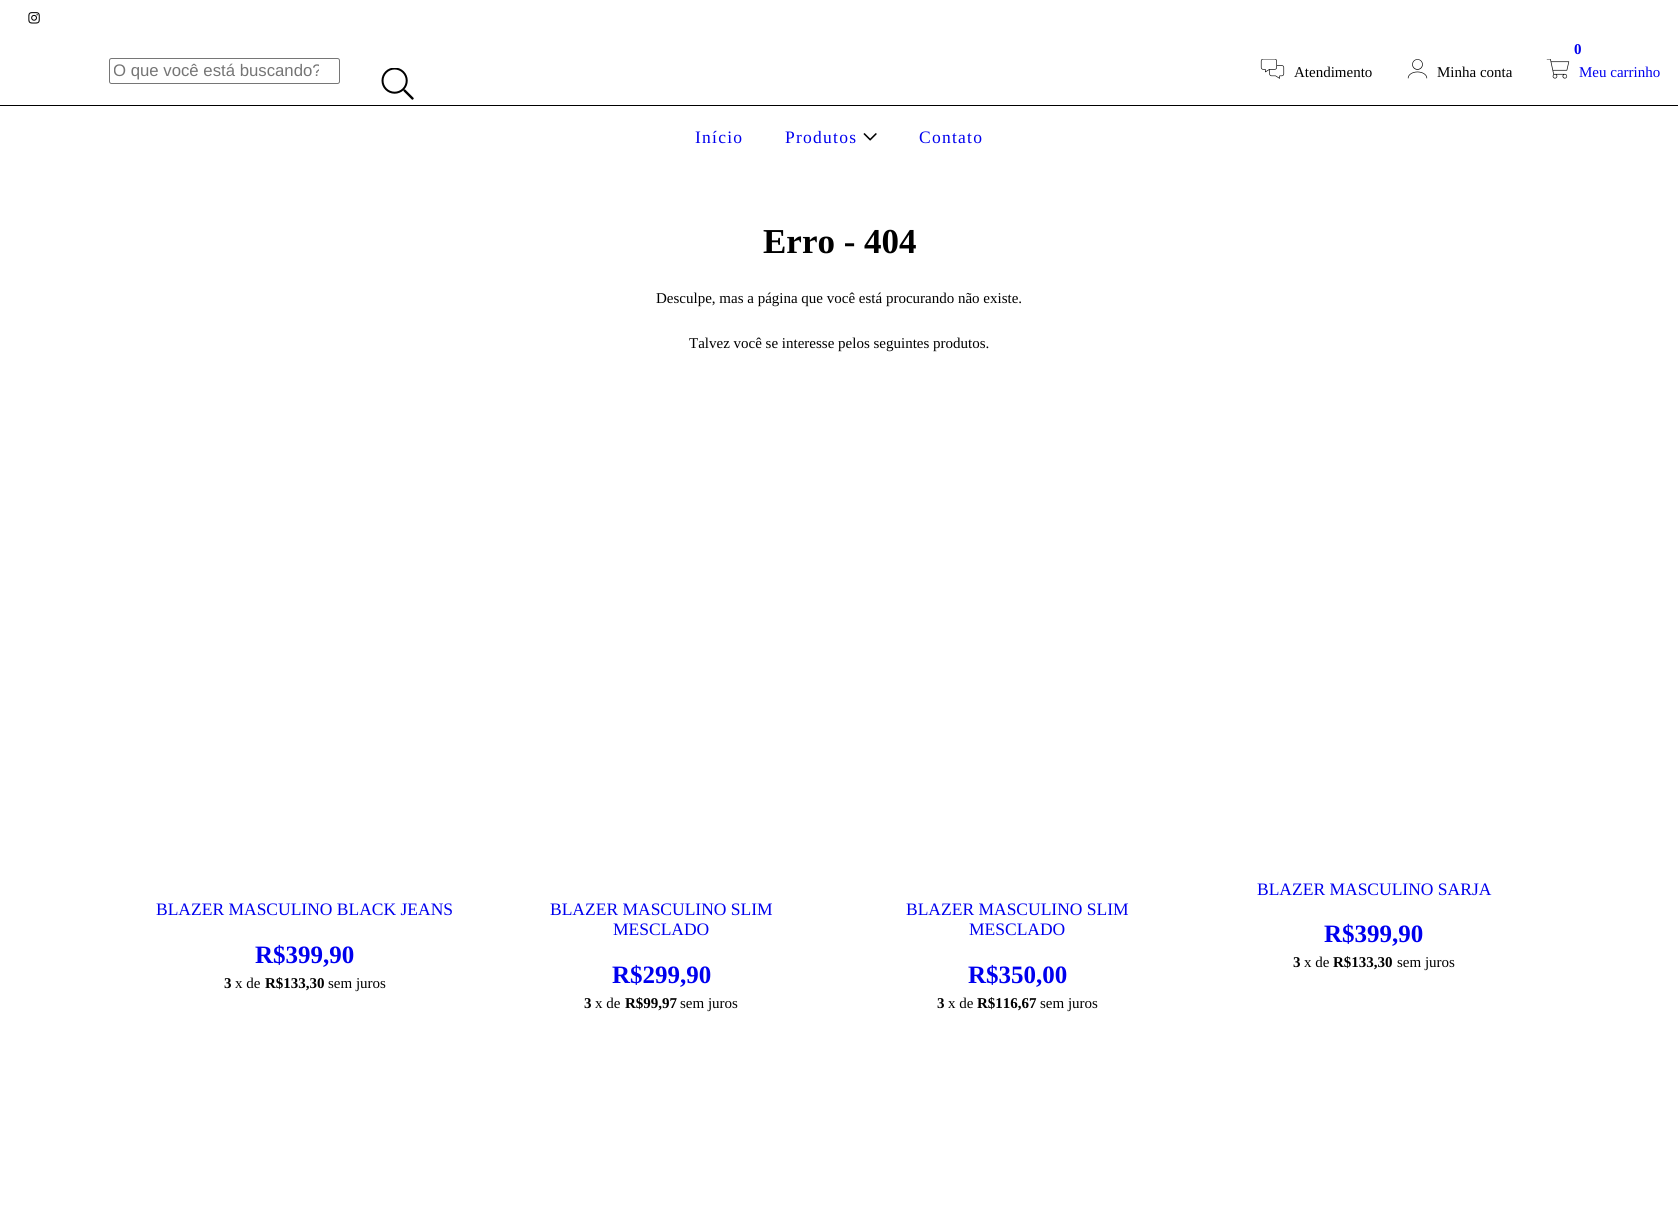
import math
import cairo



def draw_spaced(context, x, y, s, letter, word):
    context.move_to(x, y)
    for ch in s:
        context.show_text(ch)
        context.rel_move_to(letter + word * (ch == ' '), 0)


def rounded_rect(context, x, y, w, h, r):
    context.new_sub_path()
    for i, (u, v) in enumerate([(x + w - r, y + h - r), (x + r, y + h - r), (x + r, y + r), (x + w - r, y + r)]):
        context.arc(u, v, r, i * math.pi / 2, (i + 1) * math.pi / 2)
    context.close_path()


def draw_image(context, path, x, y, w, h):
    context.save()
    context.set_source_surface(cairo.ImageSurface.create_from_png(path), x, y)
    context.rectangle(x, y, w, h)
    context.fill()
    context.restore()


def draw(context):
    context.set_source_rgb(1, 1, 1)
    context.paint()
    draw_image(context, "images/1.png", 28, 12, 12, 12)
    rounded_rect(context, 109.5, 58.5, 230, 25, 2)
    context.set_source_rgb(118 / 255, 118 / 255, 118 / 255)
    context.set_line_width(1)
    context.stroke()
    draw_image(context, "images/2.png", 381, 68, 33, 32)
    draw_image(context, "images/3.png", 1260, 59, 25, 20)
    draw_image(context, "images/4.png", 1407, 59, 21, 20)
    draw_image(context, "images/5.png", 1546, 59, 24, 20)
    context.set_source_rgb(0, 0, 0)
    context.rectangle(0, 105, 1678, 1)
    context.fill()
    draw_image(context, "images/6.png", 863, 133, 14, 8)
    context.save()
    context.rectangle(114, 61, 205, 19)
    context.clip()
    context.select_font_face("Liberation Sans")
    context.set_font_size(16.75)
    context.set_source_rgb(117 / 255, 117 / 255, 117 / 255)
    context.move_to(113, 76)
    context.show_text("O que você está buscando?")
    context.restore()
    context.select_font_face("Liberation Serif")
    context.set_font_size(15)
    context.move_to(1294, 77)
    context.show_text("Atendimento")
    context.move_to(1437, 77)
    context.show_text("Minha conta")
    context.select_font_face("Liberation Serif", cairo.FontSlant.NORMAL, cairo.FontWeight.BOLD)
    context.set_source_rgb(0, 0, 238 / 255)
    context.move_to(1574, 54)
    context.show_text("0")
    context.select_font_face("Liberation Serif")
    context.move_to(1579, 77)
    context.show_text("Meu carrinho")
    context.set_font_size(17.5)
    draw_spaced(context, 695, 143, "Início", 1.25, 0)
    draw_spaced(context, 785, 143, "Produtos", 1.25, 0)
    draw_spaced(context, 919, 143, "Contato", 1.25, 0)
    context.select_font_face("Liberation Serif", cairo.FontSlant.NORMAL, cairo.FontWeight.BOLD)
    context.set_font_size(35)
    context.set_source_rgb(0, 0, 0)
    context.move_to(763, 253)
    context.show_text("Erro - 404")
    context.select_font_face("Liberation Serif")
    context.set_font_size(15)
    context.move_to(656, 303)
    context.show_text("Desculpe, mas a página que você está procurando não existe.")
    context.move_to(689, 348)
    context.show_text("Talvez você se interesse pelos seguintes produtos.")
    context.set_font_size(17.5)
    context.set_source_rgb(0, 0, 238 / 255)
    context.move_to(156, 915)
    context.show_text("BLAZER MASCULINO BLACK JEANS")
    context.select_font_face("Liberation Serif", cairo.FontSlant.NORMAL, cairo.FontWeight.BOLD)
    context.set_font_size(25)
    context.move_to(255, 963)
    context.show_text("R$399,90")
    context.set_font_size(15)
    context.set_source_rgb(0, 0, 0)
    context.move_to(224, 988)
    context.show_text("3")
    context.select_font_face("Liberation Serif")
    context.move_to(235, 988)
    context.show_text("x de")
    context.select_font_face("Liberation Serif", cairo.FontSlant.NORMAL, cairo.FontWeight.BOLD)
    context.move_to(265, 988)
    context.show_text("R$133,30")
    context.select_font_face("Liberation Serif")
    context.move_to(328, 988)
    context.show_text("sem juros")
    context.set_font_size(17.5)
    context.set_source_rgb(0, 0, 238 / 255)
    context.move_to(550, 915)
    context.show_text("BLAZER MASCULINO SLIM")
    context.move_to(613, 935)
    context.show_text("MESCLADO")
    context.select_font_face("Liberation Serif", cairo.FontSlant.NORMAL, cairo.FontWeight.BOLD)
    context.set_font_size(25)
    context.move_to(612, 983)
    context.show_text("R$299,90")
    context.set_font_size(15)
    context.set_source_rgb(0, 0, 0)
    context.move_to(584, 1008)
    context.show_text("3")
    context.select_font_face("Liberation Serif")
    context.move_to(595, 1008)
    context.show_text("x de")
    context.select_font_face("Liberation Serif", cairo.FontSlant.NORMAL, cairo.FontWeight.BOLD)
    context.move_to(625, 1008)
    context.show_text("R$99,97")
    context.select_font_face("Liberation Serif")
    context.move_to(680, 1008)
    context.show_text("sem juros")
    context.set_font_size(17.5)
    context.set_source_rgb(0, 0, 238 / 255)
    context.move_to(906, 915)
    context.show_text("BLAZER MASCULINO SLIM")
    context.move_to(969, 935)
    context.show_text("MESCLADO")
    context.select_font_face("Liberation Serif", cairo.FontSlant.NORMAL, cairo.FontWeight.BOLD)
    context.set_font_size(25)
    context.move_to(968, 983)
    context.show_text("R$350,00")
    context.set_font_size(15)
    context.set_source_rgb(0, 0, 0)
    context.move_to(937, 1008)
    context.show_text("3")
    context.select_font_face("Liberation Serif")
    context.move_to(948, 1008)
    context.show_text("x de")
    context.select_font_face("Liberation Serif", cairo.FontSlant.NORMAL, cairo.FontWeight.BOLD)
    context.move_to(977, 1008)
    context.show_text("R$116,67")
    context.select_font_face("Liberation Serif")
    context.move_to(1040, 1008)
    context.show_text("sem juros")
    context.set_font_size(17.5)
    context.set_source_rgb(0, 0, 238 / 255)
    context.move_to(1257, 895)
    context.show_text("BLAZER MASCULINO SARJA")
    context.select_font_face("Liberation Serif", cairo.FontSlant.NORMAL, cairo.FontWeight.BOLD)
    context.set_font_size(25)
    context.move_to(1324, 942)
    context.show_text("R$399,90")
    context.set_font_size(15)
    context.set_source_rgb(0, 0, 0)
    context.move_to(1293, 967)
    context.show_text("3")
    context.select_font_face("Liberation Serif")
    context.move_to(1304, 967)
    context.show_text("x de")
    context.select_font_face("Liberation Serif", cairo.FontSlant.NORMAL, cairo.FontWeight.BOLD)
    context.move_to(1333, 967)
    context.show_text("R$133,30")
    context.select_font_face("Liberation Serif")
    context.move_to(1397, 967)
    context.show_text("sem juros")


surface = cairo.ImageSurface(cairo.Format.RGB24, 1678, 1218)
context = cairo.Context(surface)
options = cairo.FontOptions()
options.set_hint_metrics(cairo.HintMetrics.OFF)
options.set_hint_style(cairo.HintStyle.NONE)
context.set_font_options(options)
context.set_miter_limit(4)
draw(context)
surface.write_to_png("out.png")
